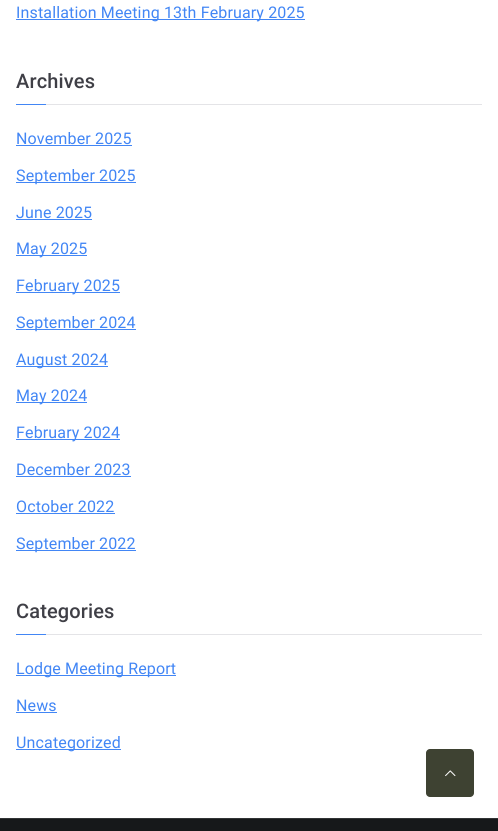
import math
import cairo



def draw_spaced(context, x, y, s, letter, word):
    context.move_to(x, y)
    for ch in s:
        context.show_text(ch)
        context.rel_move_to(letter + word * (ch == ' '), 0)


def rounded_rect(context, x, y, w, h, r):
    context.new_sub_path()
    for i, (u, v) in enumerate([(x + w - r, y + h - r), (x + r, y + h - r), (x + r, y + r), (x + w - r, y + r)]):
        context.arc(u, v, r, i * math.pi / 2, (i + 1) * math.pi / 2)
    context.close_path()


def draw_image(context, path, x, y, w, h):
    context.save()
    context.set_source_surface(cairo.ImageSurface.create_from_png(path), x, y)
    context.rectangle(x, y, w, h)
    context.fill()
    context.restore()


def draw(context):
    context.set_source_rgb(1, 1, 1)
    context.paint()
    context.set_source_rgb(66 / 255, 134 / 255, 245 / 255)
    context.rectangle(16, 19, 289, 1)
    context.fill()
    context.set_source_rgb(228 / 255, 228 / 255, 231 / 255)
    context.rectangle(46, 104, 436, 1)
    context.fill()
    context.set_source_rgb(66 / 255, 134 / 255, 245 / 255)
    context.rectangle(16, 104, 30, 1)
    context.fill()
    context.rectangle(16, 145, 116, 1)
    context.fill()
    context.rectangle(16, 182, 120, 1)
    context.fill()
    context.rectangle(16, 219, 76, 1)
    context.fill()
    context.rectangle(16, 255, 71, 1)
    context.fill()
    context.rectangle(16, 292, 104, 1)
    context.fill()
    context.rectangle(16, 329, 120, 1)
    context.fill()
    context.rectangle(16, 366, 92, 1)
    context.fill()
    context.rectangle(16, 402, 71, 1)
    context.fill()
    context.rectangle(16, 439, 104, 1)
    context.fill()
    context.rectangle(16, 476, 115, 1)
    context.fill()
    context.rectangle(16, 513, 99, 1)
    context.fill()
    context.rectangle(16, 550, 120, 1)
    context.fill()
    context.set_source_rgb(228 / 255, 228 / 255, 231 / 255)
    context.rectangle(46, 634, 436, 1)
    context.fill()
    context.set_source_rgb(66 / 255, 134 / 255, 245 / 255)
    context.rectangle(16, 634, 30, 1)
    context.fill()
    context.rectangle(16, 675, 160, 1)
    context.fill()
    context.rectangle(16, 712, 41, 1)
    context.fill()
    context.rectangle(16, 749, 105, 1)
    context.fill()
    context.set_source_rgb(22 / 255, 24 / 255, 26 / 255)
    context.rectangle(0, 819, 498, 12)
    context.fill()
    context.set_source_rgb(50 / 255, 52 / 255, 53 / 255)
    context.rectangle(0, 818, 498, 1)
    context.fill()
    context.set_source_rgb(62 / 255, 66 / 255, 50 / 255)
    rounded_rect(context, 426, 749, 48, 48, 4)
    context.fill()
    draw_image(context, "images/1.png", 445, 770, 11, 7)
    context.select_font_face("Roboto")
    context.set_font_size(16)
    context.set_source_rgb(66 / 255, 134 / 255, 245 / 255)
    draw_spaced(context, 16, 18, "Installation Meeting 13th February 2025", 0.15, 0)
    context.select_font_face("Roboto Medium")
    context.set_font_size(20)
    context.set_source_rgb(63 / 255, 63 / 255, 70 / 255)
    draw_spaced(context, 16, 88, "Archives", 0.15, 0)
    context.select_font_face("Roboto")
    context.set_font_size(16)
    context.set_source_rgb(66 / 255, 134 / 255, 245 / 255)
    draw_spaced(context, 16, 144, "November 2025", 0.15, 0)
    draw_spaced(context, 16, 181, "September 2025", 0.15, 0)
    draw_spaced(context, 16, 218, "June 2025", 0.15, 0)
    draw_spaced(context, 16, 254, "May 2025", 0.15, 0)
    draw_spaced(context, 16, 291, "February 2025", 0.15, 0)
    draw_spaced(context, 16, 328, "September 2024", 0.15, 0)
    draw_spaced(context, 16, 365, "August 2024", 0.15, 0)
    draw_spaced(context, 16, 401, "May 2024", 0.15, 0)
    draw_spaced(context, 16, 438, "February 2024", 0.15, 0)
    draw_spaced(context, 16, 475, "December 2023", 0.15, 0)
    draw_spaced(context, 16, 512, "October 2022", 0.15, 0)
    draw_spaced(context, 16, 549, "September 2022", 0.15, 0)
    context.select_font_face("Roboto Medium")
    context.set_font_size(20)
    context.set_source_rgb(63 / 255, 63 / 255, 70 / 255)
    draw_spaced(context, 16, 618, "Categories", 0.15, 0)
    context.select_font_face("Roboto")
    context.set_font_size(16)
    context.set_source_rgb(66 / 255, 134 / 255, 245 / 255)
    draw_spaced(context, 16, 674, "Lodge Meeting Report", 0.15, 0)
    draw_spaced(context, 16, 711, "News", 0.15, 0)
    draw_spaced(context, 16, 748, "Uncategorized", 0.15, 0)


surface = cairo.ImageSurface(cairo.Format.RGB24, 498, 831)
context = cairo.Context(surface)
options = cairo.FontOptions()
options.set_hint_metrics(cairo.HintMetrics.OFF)
options.set_hint_style(cairo.HintStyle.NONE)
context.set_font_options(options)
context.set_miter_limit(4)
draw(context)
surface.write_to_png("out.png")
